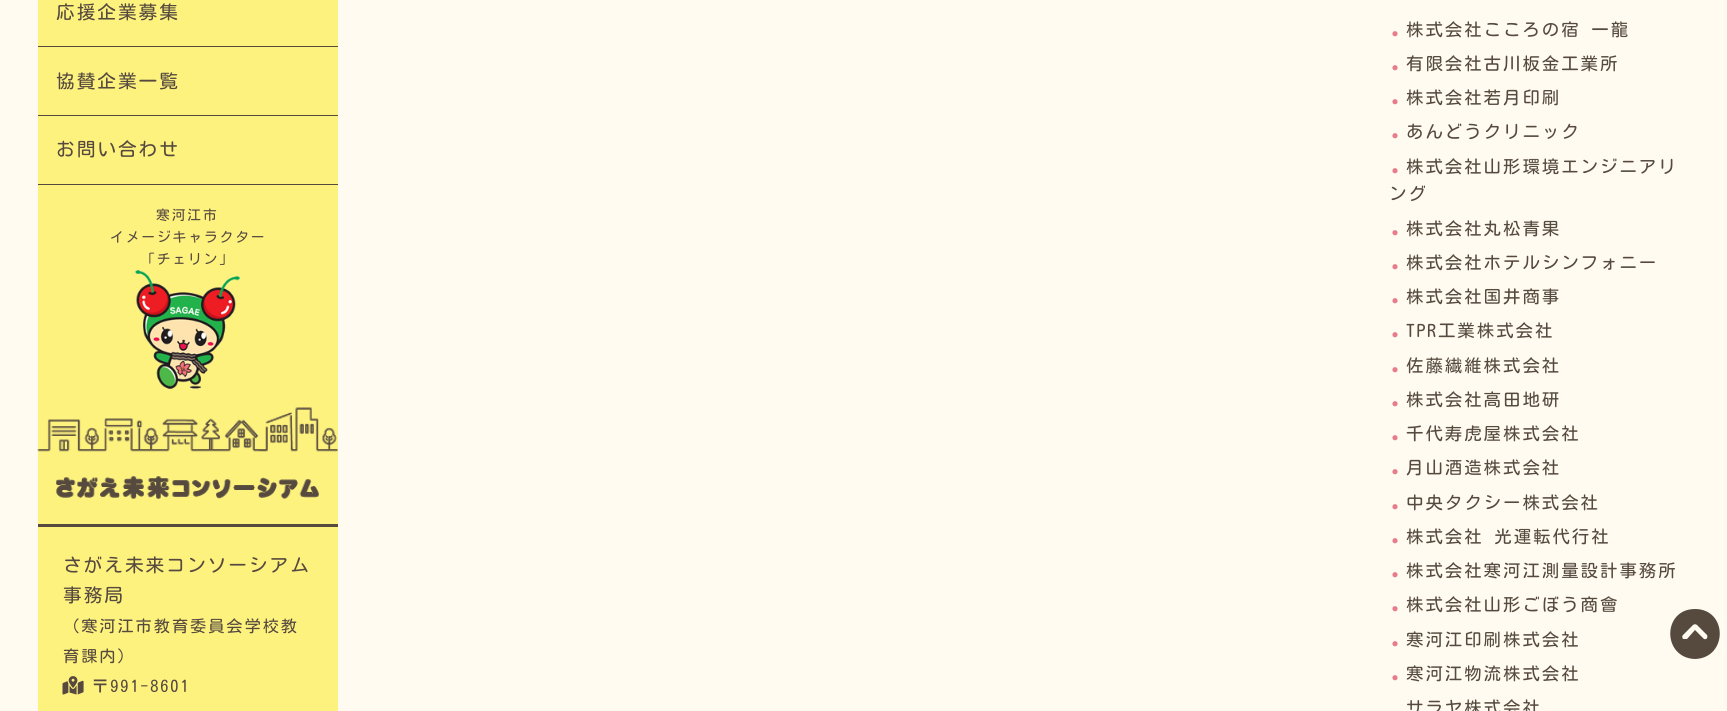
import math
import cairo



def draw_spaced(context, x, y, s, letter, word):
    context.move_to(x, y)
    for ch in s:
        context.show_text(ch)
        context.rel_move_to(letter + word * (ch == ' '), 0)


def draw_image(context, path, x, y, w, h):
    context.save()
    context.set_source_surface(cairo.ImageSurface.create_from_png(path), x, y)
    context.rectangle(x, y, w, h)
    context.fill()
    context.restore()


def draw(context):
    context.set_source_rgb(1, 251 / 255, 240 / 255)
    context.paint()
    context.set_source_rgb(254 / 255, 242 / 255, 127 / 255)
    context.rectangle(38, 0, 300, 711)
    context.fill()
    context.set_source_rgb(86 / 255, 74 / 255, 63 / 255)
    context.rectangle(38, 46, 300, 1)
    context.fill()
    context.rectangle(38, 115, 300, 1)
    context.fill()
    context.rectangle(38, 184, 300, 1)
    context.fill()
    draw_image(context, "images/1.png", 135, 270, 105, 119)
    draw_image(context, "images/2.png", 37, 407, 301, 45)
    context.rectangle(38, 524, 300, 3)
    context.fill()
    draw_image(context, "images/3.png", 56, 476, 263, 23)
    draw_image(context, "images/4.png", 62, 676, 22, 19)
    context.new_path()
    context.move_to(1695, 659)
    context.curve_to(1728, 658, 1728, 609, 1695, 609)
    context.curve_to(1662, 609, 1662, 658, 1695, 659)
    context.close_path()
    context.move_to(1707, 635)
    context.curve_to(1708, 637, 1707, 640, 1704, 639)
    context.line_to(1695, 630)
    context.line_to(1687, 639)
    context.curve_to(1685, 639, 1684, 639, 1683, 639)
    context.curve_to(1682, 637, 1682, 636, 1683, 635)
    context.line_to(1693, 625)
    context.curve_to(1694, 624, 1696, 624, 1697, 625)
    context.close_path()
    context.fill()
    context.select_font_face("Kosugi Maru")
    context.set_font_size(18.75)
    draw_spaced(context, 56, 19, "応援企業募集", 1.9, 0)
    draw_spaced(context, 56, 88, "協賛企業一覧", 1.9, 0)
    draw_spaced(context, 56, 156, "お問い合わせ", 1.9, 0)
    context.set_font_size(13.75)
    draw_spaced(context, 156, 220, "寒河江市", 1.9, 0)
    draw_spaced(context, 110, 242, "イメージキャラクター", 1.9, 0)
    draw_spaced(context, 141, 264, "「チェリン」", 1.9, 0)
    context.set_font_size(18.75)
    draw_spaced(context, 63, 572, "さがえ未来コンソーシアム", 1.9, 0)
    draw_spaced(context, 63, 602, "事務局", 1.9, 0)
    context.set_font_size(16.25)
    draw_spaced(context, 63, 632, "（寒河江市教育委員会学校教", 1.9, 0)
    draw_spaced(context, 63, 662, "育課内）", 1.9, 0)
    draw_spaced(context, 92, 692, "〒991-8601", 1.9, 0)
    context.set_font_size(6)
    context.set_source_rgb(231 / 255, 124 / 255, 140 / 255)
    draw_spaced(context, 1392, 36, "●", 1.9, 0)
    context.set_font_size(17.5)
    context.set_source_rgb(86 / 255, 74 / 255, 63 / 255)
    draw_spaced(context, 1406, 36, "株式会社こころの宿 一龍", 1.9, 0)
    context.set_font_size(6)
    context.set_source_rgb(231 / 255, 124 / 255, 140 / 255)
    draw_spaced(context, 1392, 70, "●", 1.9, 0)
    context.set_font_size(17.5)
    context.set_source_rgb(86 / 255, 74 / 255, 63 / 255)
    draw_spaced(context, 1406, 70, "有限会社古川板金工業所", 1.9, 0)
    context.set_font_size(6)
    context.set_source_rgb(231 / 255, 124 / 255, 140 / 255)
    draw_spaced(context, 1392, 104, "●", 1.9, 0)
    context.set_font_size(17.5)
    context.set_source_rgb(86 / 255, 74 / 255, 63 / 255)
    draw_spaced(context, 1406, 104, "株式会社若月印刷", 1.9, 0)
    context.set_font_size(6)
    context.set_source_rgb(231 / 255, 124 / 255, 140 / 255)
    draw_spaced(context, 1392, 138, "●", 1.9, 0)
    context.set_font_size(17.5)
    context.set_source_rgb(86 / 255, 74 / 255, 63 / 255)
    draw_spaced(context, 1406, 138, "あんどうクリニック", 1.9, 0)
    context.set_font_size(6)
    context.set_source_rgb(231 / 255, 124 / 255, 140 / 255)
    draw_spaced(context, 1392, 173, "●", 1.9, 0)
    context.set_font_size(17.5)
    context.set_source_rgb(86 / 255, 74 / 255, 63 / 255)
    draw_spaced(context, 1406, 173, "株式会社山形環境エンジニアリ", 1.9, 0)
    draw_spaced(context, 1389, 200, "ング", 1.9, 0)
    context.set_font_size(6)
    context.set_source_rgb(231 / 255, 124 / 255, 140 / 255)
    draw_spaced(context, 1392, 235, "●", 1.9, 0)
    context.set_font_size(17.5)
    context.set_source_rgb(86 / 255, 74 / 255, 63 / 255)
    draw_spaced(context, 1406, 235, "株式会社丸松青果", 1.9, 0)
    context.set_font_size(6)
    context.set_source_rgb(231 / 255, 124 / 255, 140 / 255)
    draw_spaced(context, 1392, 269, "●", 1.9, 0)
    context.set_font_size(17.5)
    context.set_source_rgb(86 / 255, 74 / 255, 63 / 255)
    draw_spaced(context, 1406, 269, "株式会社ホテルシンフォニー", 1.9, 0)
    context.set_font_size(6)
    context.set_source_rgb(231 / 255, 124 / 255, 140 / 255)
    draw_spaced(context, 1392, 303, "●", 1.9, 0)
    context.set_font_size(17.5)
    context.set_source_rgb(86 / 255, 74 / 255, 63 / 255)
    draw_spaced(context, 1406, 303, "株式会社国井商事", 1.9, 0)
    context.set_font_size(6)
    context.set_source_rgb(231 / 255, 124 / 255, 140 / 255)
    draw_spaced(context, 1392, 337, "●", 1.9, 0)
    context.set_font_size(17.5)
    context.set_source_rgb(86 / 255, 74 / 255, 63 / 255)
    draw_spaced(context, 1406, 337, "TPR工業株式会社", 1.9, 0)
    context.set_font_size(6)
    context.set_source_rgb(231 / 255, 124 / 255, 140 / 255)
    draw_spaced(context, 1392, 372, "●", 1.9, 0)
    context.set_font_size(17.5)
    context.set_source_rgb(86 / 255, 74 / 255, 63 / 255)
    draw_spaced(context, 1406, 372, "佐藤繊維株式会社", 1.9, 0)
    context.set_font_size(6)
    context.set_source_rgb(231 / 255, 124 / 255, 140 / 255)
    draw_spaced(context, 1392, 406, "●", 1.9, 0)
    context.set_font_size(17.5)
    context.set_source_rgb(86 / 255, 74 / 255, 63 / 255)
    draw_spaced(context, 1406, 406, "株式会社高田地研", 1.9, 0)
    context.set_font_size(6)
    context.set_source_rgb(231 / 255, 124 / 255, 140 / 255)
    draw_spaced(context, 1392, 440, "●", 1.9, 0)
    context.set_font_size(17.5)
    context.set_source_rgb(86 / 255, 74 / 255, 63 / 255)
    draw_spaced(context, 1406, 440, "千代寿虎屋株式会社", 1.9, 0)
    context.set_font_size(6)
    context.set_source_rgb(231 / 255, 124 / 255, 140 / 255)
    draw_spaced(context, 1392, 474, "●", 1.9, 0)
    context.set_font_size(17.5)
    context.set_source_rgb(86 / 255, 74 / 255, 63 / 255)
    draw_spaced(context, 1406, 474, "月山酒造株式会社", 1.9, 0)
    context.set_font_size(6)
    context.set_source_rgb(231 / 255, 124 / 255, 140 / 255)
    draw_spaced(context, 1392, 509, "●", 1.9, 0)
    context.set_font_size(17.5)
    context.set_source_rgb(86 / 255, 74 / 255, 63 / 255)
    draw_spaced(context, 1406, 509, "中央タクシー株式会社", 1.9, 0)
    context.set_font_size(6)
    context.set_source_rgb(231 / 255, 124 / 255, 140 / 255)
    draw_spaced(context, 1392, 543, "●", 1.9, 0)
    context.set_font_size(17.5)
    context.set_source_rgb(86 / 255, 74 / 255, 63 / 255)
    draw_spaced(context, 1406, 543, "株式会社 光運転代行社", 1.9, 0)
    context.set_font_size(6)
    context.set_source_rgb(231 / 255, 124 / 255, 140 / 255)
    draw_spaced(context, 1392, 577, "●", 1.9, 0)
    context.set_font_size(17.5)
    context.set_source_rgb(86 / 255, 74 / 255, 63 / 255)
    draw_spaced(context, 1406, 577, "株式会社寒河江測量設計事務所", 1.9, 0)
    context.set_font_size(6)
    context.set_source_rgb(231 / 255, 124 / 255, 140 / 255)
    draw_spaced(context, 1392, 611, "●", 1.9, 0)
    context.set_font_size(17.5)
    context.set_source_rgb(86 / 255, 74 / 255, 63 / 255)
    draw_spaced(context, 1406, 611, "株式会社山形ごぼう商會", 1.9, 0)
    context.set_font_size(6)
    context.set_source_rgb(231 / 255, 124 / 255, 140 / 255)
    draw_spaced(context, 1392, 646, "●", 1.9, 0)
    context.set_font_size(17.5)
    context.set_source_rgb(86 / 255, 74 / 255, 63 / 255)
    draw_spaced(context, 1406, 646, "寒河江印刷株式会社", 1.9, 0)
    context.set_font_size(6)
    context.set_source_rgb(231 / 255, 124 / 255, 140 / 255)
    draw_spaced(context, 1392, 680, "●", 1.9, 0)
    context.set_font_size(17.5)
    context.set_source_rgb(86 / 255, 74 / 255, 63 / 255)
    draw_spaced(context, 1406, 680, "寒河江物流株式会社", 1.9, 0)
    draw_spaced(context, 1406, 714, "サラヤ株式会社", 1.9, 0)


surface = cairo.ImageSurface(cairo.Format.RGB24, 1727, 711)
context = cairo.Context(surface)
options = cairo.FontOptions()
options.set_hint_metrics(cairo.HintMetrics.OFF)
options.set_hint_style(cairo.HintStyle.NONE)
context.set_font_options(options)
context.set_miter_limit(4)
draw(context)
surface.write_to_png("out.png")
